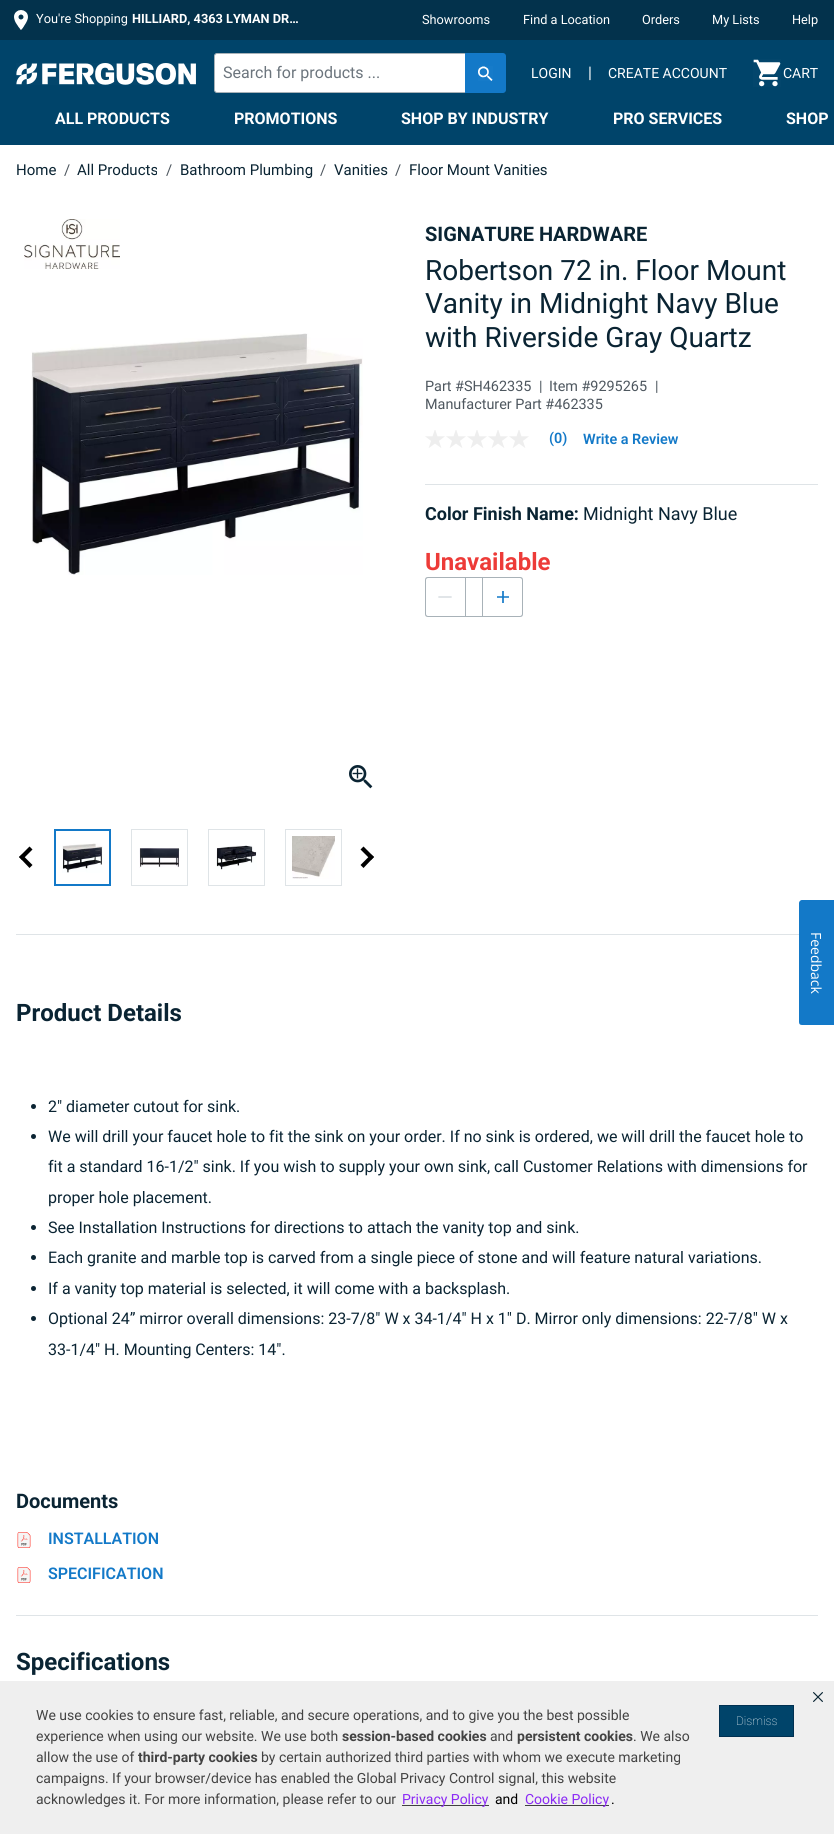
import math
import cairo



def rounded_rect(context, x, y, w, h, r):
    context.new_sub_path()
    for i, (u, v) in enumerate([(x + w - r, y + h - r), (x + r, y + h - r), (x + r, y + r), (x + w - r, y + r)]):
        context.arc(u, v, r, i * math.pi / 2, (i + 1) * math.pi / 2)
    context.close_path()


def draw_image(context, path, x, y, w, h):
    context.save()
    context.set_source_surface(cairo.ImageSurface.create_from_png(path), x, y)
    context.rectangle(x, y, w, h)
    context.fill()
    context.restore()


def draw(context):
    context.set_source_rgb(1, 1, 1)
    context.paint()
    context.set_source_rgb(3 / 255, 50 / 255, 76 / 255)
    context.rectangle(0, 0, 834, 40)
    context.fill()
    draw_image(context, "images/1.png", 14, 10, 14, 20)
    context.set_source_rgb(0, 68 / 255, 106 / 255)
    context.rectangle(0, 40, 834, 105)
    context.fill()
    draw_image(context, "images/2.png", 16, 63, 180, 22)
    context.set_source_rgb(1, 1, 1)
    rounded_rect(context, 214.5, 53.5, 278, 39, 2.5)
    context.fill_preserve()
    context.set_source_rgb(168 / 255, 178 / 255, 184 / 255)
    context.set_line_width(1)
    context.stroke()
    context.set_source_rgb(19 / 255, 121 / 255, 200 / 255)
    context.new_path()
    context.move_to(465, 53)
    context.line_to(503, 53)
    context.curve_to(504.5, 53, 506, 54.5, 506, 56)
    context.line_to(506, 90)
    context.curve_to(506, 91.5, 504.5, 93, 503, 93)
    context.line_to(465, 93)
    context.close_path()
    context.fill()
    draw_image(context, "images/3.png", 478, 66, 15, 15)
    draw_image(context, "images/4.png", 753, 59, 28, 28)
    draw_image(context, "images/5.png", 24, 219, 96, 50)
    draw_image(context, "images/6.png", 31, 333, 332, 242)
    draw_image(context, "images/7.png", 349, 765, 24, 24)
    context.set_source_rgb(0, 0, 0)
    context.new_path()
    context.move_to(22, 854.5)
    context.line_to(32.5, 865)
    context.line_to(29.5, 868)
    context.line_to(19, 857)
    context.close_path()
    context.fill()
    context.new_path()
    context.move_to(29.5, 846.5)
    context.line_to(32.5, 849.5)
    context.line_to(22, 860)
    context.line_to(19, 857)
    context.close_path()
    context.fill()
    context.rectangle(55, 830, 55, 55)
    context.set_source_rgb(19 / 255, 121 / 255, 200 / 255)
    context.set_line_width(2)
    context.stroke()
    draw_image(context, "images/8.png", 62, 843, 41, 30)
    context.rectangle(131.5, 829.5, 56, 56)
    context.set_source_rgb(223 / 255, 228 / 255, 231 / 255)
    context.set_line_width(1)
    context.stroke()
    draw_image(context, "images/9.png", 139, 848, 41, 20)
    context.rectangle(208.5, 829.5, 56, 56)
    context.stroke()
    draw_image(context, "images/10.png", 216, 845, 41, 25)
    context.rectangle(285.5, 829.5, 56, 56)
    context.stroke()
    draw_image(context, "images/11.png", 292, 836, 43, 43)
    context.set_source_rgb(0, 0, 0)
    context.new_path()
    context.move_to(363.5, 846.5)
    context.line_to(374, 857)
    context.line_to(371, 860)
    context.line_to(360.5, 849.5)
    context.close_path()
    context.fill()
    context.new_path()
    context.move_to(371, 854.5)
    context.line_to(374, 857)
    context.line_to(363.5, 868)
    context.line_to(360.5, 865)
    context.close_path()
    context.fill()
    draw_image(context, "images/12.png", 425, 430, 20, 18)
    draw_image(context, "images/12.png", 446, 430, 20, 18)
    draw_image(context, "images/12.png", 467, 430, 20, 18)
    draw_image(context, "images/12.png", 488, 430, 20, 18)
    draw_image(context, "images/12.png", 509, 430, 20, 18)
    context.set_source_rgb(223 / 255, 228 / 255, 231 / 255)
    context.rectangle(425, 484, 393, 1)
    context.fill()
    context.set_source_rgb(168 / 255, 178 / 255, 184 / 255)
    context.set_fill_rule(cairo.FillRule.EVEN_ODD)
    context.new_path()
    context.move_to(428, 577)
    context.line_to(465, 577)
    context.line_to(465, 617)
    context.line_to(428, 617)
    context.curve_to(426, 617, 425, 616, 425, 614)
    context.line_to(425, 580)
    context.curve_to(425, 578, 426, 577, 428, 577)
    context.close_path()
    context.move_to(428, 578)
    context.line_to(465, 578)
    context.line_to(465, 616)
    context.line_to(428, 616)
    context.curve_to(427, 616, 426, 615, 426, 614)
    context.line_to(426, 580)
    context.curve_to(426, 579, 427, 578, 428, 578)
    context.close_path()
    context.fill()
    draw_image(context, "images/13.png", 438, 596, 14, 2)
    context.rectangle(465.5, 577.5, 17, 39)
    context.stroke()
    context.new_path()
    context.move_to(483, 577)
    context.line_to(520, 577)
    context.curve_to(522, 577, 523, 578, 523, 580)
    context.line_to(523, 614)
    context.curve_to(523, 616, 522, 617, 520, 617)
    context.line_to(483, 617)
    context.close_path()
    context.move_to(483, 578)
    context.line_to(520, 578)
    context.curve_to(521, 578, 522, 579, 522, 580)
    context.line_to(522, 614)
    context.curve_to(522, 615, 521, 616, 520, 616)
    context.line_to(483, 616)
    context.close_path()
    context.fill()
    draw_image(context, "images/14.png", 497, 591, 12, 12)
    context.set_source_rgb(223 / 255, 228 / 255, 231 / 255)
    context.rectangle(16, 934, 783, 1)
    context.fill()
    context.set_source_rgb(10 / 255, 36 / 255, 51 / 255)
    context.arc(33.5, 1106.5, 2.5, 0, 2 * math.pi)
    context.fill()
    context.arc(33.5, 1136.5, 2.5, 0, 2 * math.pi)
    context.fill()
    context.arc(33.5, 1227.5, 2.5, 0, 2 * math.pi)
    context.fill()
    context.arc(33.5, 1257.5, 2.5, 0, 2 * math.pi)
    context.fill()
    context.arc(33.5, 1288.5, 2.5, 0, 2 * math.pi)
    context.fill()
    context.arc(33.5, 1318.5, 2.5, 0, 2 * math.pi)
    context.fill()
    draw_image(context, "images/15.png", 17, 1532, 14, 16)
    draw_image(context, "images/15.png", 17, 1567, 14, 16)
    context.set_source_rgb(223 / 255, 228 / 255, 231 / 255)
    context.rectangle(16, 1615, 802, 1)
    context.fill()
    context.set_source_rgb(19 / 255, 121 / 255, 200 / 255)
    context.set_fill_rule(cairo.FillRule.WINDING)
    context.new_path()
    context.move_to(834, 900)
    context.line_to(834, 1025)
    context.line_to(802, 1025)
    context.curve_to(800, 1025, 799, 1024, 799, 1022)
    context.line_to(799, 903)
    context.curve_to(799, 902, 800, 900, 802, 900)
    context.close_path()
    context.fill()
    context.set_source_rgb(239 / 255, 239 / 255, 239 / 255)
    context.rectangle(0, 1681, 834, 153)
    context.fill()
    context.set_source_rgb(64 / 255, 64 / 255, 64 / 255)
    context.rectangle(402, 1805, 87, 1)
    context.fill()
    context.rectangle(525, 1805, 84, 1)
    context.fill()
    draw_image(context, "images/16.png", 813, 1692, 10, 10)
    context.set_source_rgb(0, 68 / 255, 106 / 255)
    context.rectangle(719.5, 1705.5, 74, 31)
    context.fill_preserve()
    context.set_source_rgb(0, 48 / 255, 81 / 255)
    context.stroke()
    context.select_font_face("Roboto")
    context.set_font_size(12.75)
    context.set_source_rgb(1, 1, 1)
    context.move_to(36, 23)
    context.show_text("You're Shopping")
    context.select_font_face("Roboto", cairo.FontSlant.NORMAL, cairo.FontWeight.BOLD)
    context.move_to(132, 23)
    context.show_text("HILLIARD, 4363 LYMAN DR…")
    context.select_font_face("Roboto")
    context.move_to(422, 24)
    context.show_text("Showrooms")
    context.move_to(523, 24)
    context.show_text("Find a Location")
    context.move_to(642, 24)
    context.show_text("Orders")
    context.move_to(712, 24)
    context.show_text("My Lists")
    context.move_to(792, 24)
    context.show_text("Help")
    context.set_font_size(16)
    context.set_source_rgb(108 / 255, 117 / 255, 125 / 255)
    context.move_to(223, 78)
    context.show_text("Search for products ...")
    context.set_font_size(14)
    context.set_source_rgb(1, 1, 1)
    context.move_to(531, 78)
    context.show_text("LOGIN")
    context.set_font_size(16)
    context.move_to(588, 78)
    context.show_text("|")
    context.set_font_size(14)
    context.move_to(608, 78)
    context.show_text("CREATE ACCOUNT")
    context.move_to(783, 78)
    context.show_text("CART")
    context.select_font_face("Roboto", cairo.FontSlant.NORMAL, cairo.FontWeight.BOLD)
    context.set_font_size(16)
    context.move_to(55, 124)
    context.show_text("ALL PRODUCTS")
    context.move_to(234, 124)
    context.show_text("PROMOTIONS")
    context.move_to(401, 124)
    context.show_text("SHOP BY INDUSTRY")
    context.move_to(613, 124)
    context.show_text("PRO SERVICES")
    context.move_to(786, 124)
    context.show_text("SHOP")
    context.select_font_face("Roboto")
    context.set_font_size(15)
    context.set_source_rgb(10 / 255, 36 / 255, 51 / 255)
    context.move_to(16, 175)
    context.show_text("Home")
    context.set_source_rgb(78 / 255, 87 / 255, 95 / 255)
    context.move_to(64, 175)
    context.show_text("/")
    context.set_source_rgb(10 / 255, 36 / 255, 51 / 255)
    context.move_to(77, 175)
    context.show_text("All Products")
    context.set_source_rgb(78 / 255, 87 / 255, 95 / 255)
    context.move_to(166, 175)
    context.show_text("/")
    context.set_source_rgb(10 / 255, 36 / 255, 51 / 255)
    context.move_to(180, 175)
    context.show_text("Bathroom Plumbing")
    context.set_source_rgb(78 / 255, 87 / 255, 95 / 255)
    context.move_to(320, 175)
    context.show_text("/")
    context.set_source_rgb(10 / 255, 36 / 255, 51 / 255)
    context.move_to(334, 175)
    context.show_text("Vanities")
    context.set_source_rgb(78 / 255, 87 / 255, 95 / 255)
    context.move_to(395, 175)
    context.show_text("/")
    context.set_source_rgb(10 / 255, 36 / 255, 51 / 255)
    context.move_to(409, 175)
    context.show_text("Floor Mount Vanities")
    context.select_font_face("Roboto", cairo.FontSlant.NORMAL, cairo.FontWeight.BOLD)
    context.set_font_size(20)
    context.move_to(425, 241)
    context.show_text("SIGNATURE HARDWARE")
    context.select_font_face("Roboto")
    context.set_font_size(28)
    context.move_to(425, 280)
    context.show_text("Robertson 72 in. Floor Mount")
    context.move_to(425, 313)
    context.show_text("Vanity in Midnight Navy Blue")
    context.move_to(425, 347)
    context.show_text("with Riverside Gray Quartz")
    context.set_font_size(14.4)
    context.set_source_rgb(78 / 255, 87 / 255, 95 / 255)
    context.move_to(425, 391)
    context.show_text("Part #SH462335")
    context.move_to(539, 391)
    context.show_text("|")
    context.move_to(549, 391)
    context.show_text("Item #9295265")
    context.move_to(655, 391)
    context.show_text("|")
    context.move_to(425, 409)
    context.show_text("Manufacturer Part #462335")
    context.select_font_face("Roboto SemiBold")
    context.set_source_rgb(19 / 255, 121 / 255, 200 / 255)
    context.move_to(549, 443)
    context.show_text("(0)")
    context.move_to(583, 444)
    context.show_text("Write a Review")
    context.select_font_face("Roboto", cairo.FontSlant.NORMAL, cairo.FontWeight.BOLD)
    context.set_font_size(18)
    context.set_source_rgb(10 / 255, 36 / 255, 51 / 255)
    context.move_to(425, 520)
    context.show_text("Color Finish Name:")
    context.select_font_face("Roboto")
    context.move_to(583, 520)
    context.show_text("Midnight Navy Blue")
    context.select_font_face("Roboto", cairo.FontSlant.NORMAL, cairo.FontWeight.BOLD)
    context.set_font_size(24)
    context.set_source_rgb(237 / 255, 59 / 255, 56 / 255)
    context.move_to(425, 570)
    context.show_text("Unavailable")
    context.set_source_rgb(10 / 255, 36 / 255, 51 / 255)
    context.move_to(16, 1021)
    context.show_text("Product Details")
    context.select_font_face("Roboto")
    context.set_font_size(16)
    context.move_to(48, 1112)
    context.show_text("2\" diameter cutout for sink.")
    context.move_to(48, 1142)
    context.show_text("We will drill your faucet hole to fit the sink on your order. If no sink is ordered, we will drill the faucet hole to")
    context.move_to(48, 1172)
    context.show_text("fit a standard 16-1/2\" sink. If you wish to supply your own sink, call Customer Relations with dimensions for")
    context.move_to(48, 1203)
    context.show_text("proper hole placement.")
    context.move_to(48, 1233)
    context.show_text("See Installation Instructions for directions to attach the vanity top and sink.")
    context.move_to(48, 1263)
    context.show_text("Each granite and marble top is carved from a single piece of stone and will feature natural variations.")
    context.move_to(48, 1294)
    context.show_text("If a vanity top material is selected, it will come with a backsplash.")
    context.move_to(48, 1324)
    context.show_text("Optional 24” mirror overall dimensions: 23-7/8\" W x 34-1/4\" H x 1\" D. Mirror only dimensions: 22-7/8\" W x")
    context.move_to(48, 1355)
    context.show_text("33-1/4\" H. Mounting Centers: 14\".")
    context.select_font_face("Roboto", cairo.FontSlant.NORMAL, cairo.FontWeight.BOLD)
    context.set_font_size(20)
    context.move_to(16, 1508)
    context.show_text("Documents")
    context.select_font_face("Roboto SemiBold")
    context.set_font_size(16)
    context.set_source_rgb(19 / 255, 121 / 255, 200 / 255)
    context.move_to(48, 1544)
    context.show_text("INSTALLATION")
    context.move_to(48, 1579)
    context.show_text("SPECIFICATION")
    context.select_font_face("Roboto", cairo.FontSlant.NORMAL, cairo.FontWeight.BOLD)
    context.set_font_size(24)
    context.set_source_rgb(10 / 255, 36 / 255, 51 / 255)
    context.move_to(16, 1670)
    context.show_text("Specifications")
    context.select_font_face("Open Sans")
    context.set_font_size(14)
    context.set_source_rgb(1, 1, 1)
    context.save()
    context.translate(811, 932)
    context.rotate(90 * math.pi / 180)
    context.move_to(0, 0)
    context.show_text("Feedback")
    context.restore()
    context.select_font_face("Roboto")
    context.set_source_rgb(67 / 255, 67 / 255, 67 / 255)
    context.move_to(36, 1720)
    context.show_text("We use cookies to ensure fast, reliable, and secure operations, and to give you the best possible")
    context.move_to(36, 1741)
    context.show_text("experience when using our website. We use both")
    context.select_font_face("Roboto", cairo.FontSlant.NORMAL, cairo.FontWeight.BOLD)
    context.move_to(342, 1741)
    context.show_text("session-based cookies")
    context.select_font_face("Roboto")
    context.move_to(490, 1741)
    context.show_text("and")
    context.select_font_face("Roboto", cairo.FontSlant.NORMAL, cairo.FontWeight.BOLD)
    context.move_to(517, 1741)
    context.show_text("persistent cookies")
    context.select_font_face("Roboto")
    context.move_to(633, 1741)
    context.show_text(". We also")
    context.move_to(36, 1762)
    context.show_text("allow the use of")
    context.select_font_face("Roboto", cairo.FontSlant.NORMAL, cairo.FontWeight.BOLD)
    context.move_to(138, 1762)
    context.show_text("third-party cookies")
    context.select_font_face("Roboto")
    context.move_to(261, 1762)
    context.show_text("by certain authorized third parties with whom we execute marketing")
    context.move_to(36, 1783)
    context.show_text("campaigns. If your browser/device has enabled the Global Privacy Control signal, this website")
    context.move_to(36, 1804)
    context.show_text("acknowledges it. For more information, please refer to our")
    context.set_source_rgb(139 / 255, 42 / 255, 245 / 255)
    context.move_to(402, 1804)
    context.show_text("Privacy Policy")
    context.set_source_rgb(0, 0, 0)
    context.move_to(495, 1804)
    context.show_text("and")
    context.set_source_rgb(139 / 255, 42 / 255, 245 / 255)
    context.move_to(525, 1804)
    context.show_text("Cookie Policy")
    context.set_source_rgb(0, 0, 0)
    context.move_to(611, 1804)
    context.show_text(".")
    context.select_font_face("Roboto Thin")
    context.set_font_size(12)
    context.set_source_rgb(1, 1, 1)
    context.move_to(736, 1725)
    context.show_text("Dismiss")


surface = cairo.ImageSurface(cairo.Format.RGB24, 834, 1834)
context = cairo.Context(surface)
options = cairo.FontOptions()
options.set_hint_metrics(cairo.HintMetrics.OFF)
options.set_hint_style(cairo.HintStyle.NONE)
context.set_font_options(options)
context.set_miter_limit(4)
draw(context)
surface.write_to_png("out.png")
